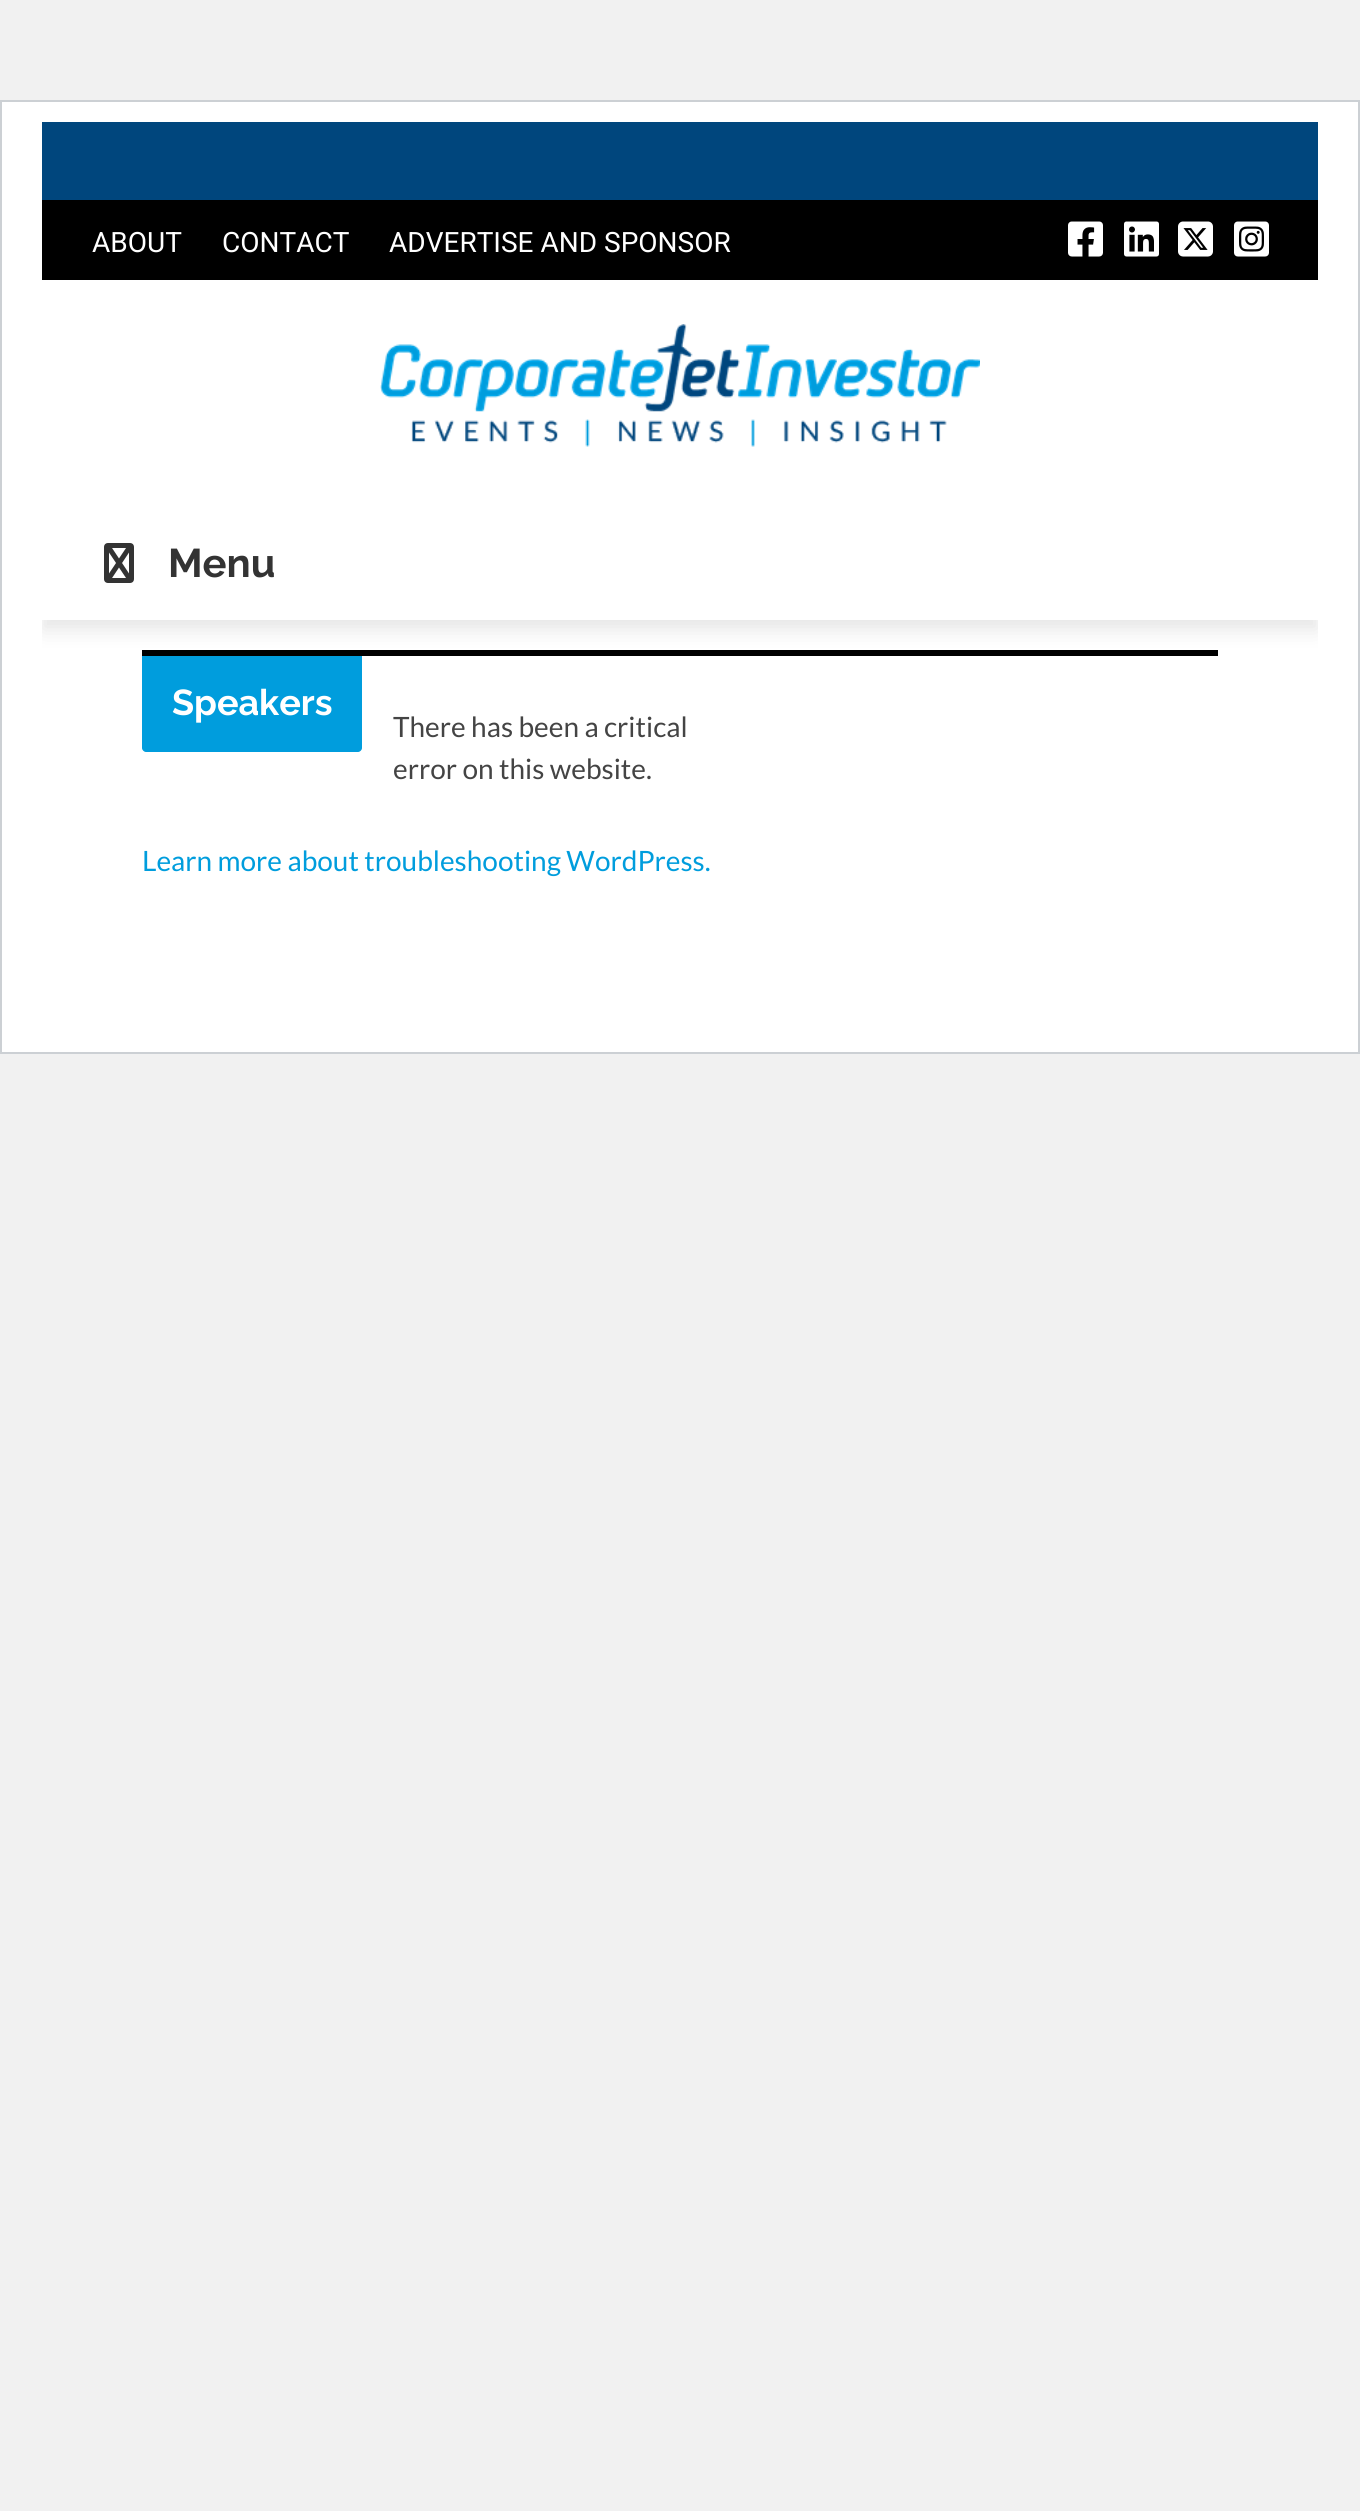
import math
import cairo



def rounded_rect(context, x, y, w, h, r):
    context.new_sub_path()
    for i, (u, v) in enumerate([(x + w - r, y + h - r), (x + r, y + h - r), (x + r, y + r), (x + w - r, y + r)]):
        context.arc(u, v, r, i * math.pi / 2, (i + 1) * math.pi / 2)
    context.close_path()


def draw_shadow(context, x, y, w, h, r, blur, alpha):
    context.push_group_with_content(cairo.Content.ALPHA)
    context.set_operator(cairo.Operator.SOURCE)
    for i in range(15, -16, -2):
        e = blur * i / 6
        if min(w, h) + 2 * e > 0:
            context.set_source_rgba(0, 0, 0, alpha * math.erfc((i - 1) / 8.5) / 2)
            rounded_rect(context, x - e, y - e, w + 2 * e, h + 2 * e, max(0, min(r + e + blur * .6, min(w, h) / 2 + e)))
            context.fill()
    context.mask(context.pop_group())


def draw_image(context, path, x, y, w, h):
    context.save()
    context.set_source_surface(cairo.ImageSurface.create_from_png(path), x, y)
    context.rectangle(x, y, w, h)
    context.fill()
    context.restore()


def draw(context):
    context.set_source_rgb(241 / 255, 241 / 255, 241 / 255)
    context.paint()
    context.set_source_rgb(1, 1, 1)
    context.rectangle(1, 101, 1358, 952)
    context.fill_preserve()
    context.set_source_rgb(204 / 255, 208 / 255, 212 / 255)
    context.stroke()
    context.set_source_rgb(0, 0, 0)
    context.rectangle(42, 200, 1276, 80)
    context.fill()
    context.set_source_rgb(0, 70 / 255, 125 / 255)
    context.rectangle(42, 122, 1276, 78)
    context.fill()
    draw_image(context, "images/1.png", 1068, 221, 35, 36)
    draw_image(context, "images/2.png", 1124, 221, 35, 36)
    draw_image(context, "images/3.png", 1178, 221, 35, 36)
    draw_image(context, "images/4.png", 1234, 221, 35, 36)
    context.set_source_rgb(0, 0, 0)
    context.rectangle(142, 650, 1076, 6)
    context.fill()
    context.set_source_rgb(0, 157 / 255, 221 / 255)
    context.new_path()
    context.move_to(142, 656)
    context.line_to(362, 656)
    context.line_to(362, 748)
    context.curve_to(362, 750, 360, 752, 358, 752)
    context.line_to(146, 752)
    context.curve_to(144, 752, 142, 750, 142, 748)
    context.close_path()
    context.fill()
    context.save()
    context.rectangle(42, 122, 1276, 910)
    context.clip()
    context.set_source_rgb(0, 0, 0)
    draw_shadow(context, 42, 290, 1276, 340, 0, 10, 0.1)
    context.restore()
    context.set_source_rgb(1, 1, 1)
    context.rectangle(42, 280, 1276, 340)
    context.fill()
    draw_image(context, "images/5.png", 380, 324, 600, 123)
    draw_image(context, "images/6.png", 104, 543, 30, 40)
    context.select_font_face("Roboto")
    context.set_font_size(28)
    context.move_to(92, 252)
    context.show_text("ABOUT")
    context.move_to(222, 252)
    context.show_text("CONTACT")
    context.move_to(389, 252)
    context.show_text("ADVERTISE AND SPONSOR")
    context.select_font_face("Raleway", cairo.FontSlant.NORMAL, cairo.FontWeight.BOLD)
    context.set_font_size(40)
    context.set_source_rgb(51 / 255, 51 / 255, 51 / 255)
    context.move_to(168, 577)
    context.show_text("Menu")
    context.set_font_size(36)
    context.set_source_rgb(1, 1, 1)
    context.move_to(172, 715)
    context.show_text("Speakers")
    context.select_font_face("Lato")
    context.set_font_size(28)
    context.set_source_rgb(68 / 255, 68 / 255, 68 / 255)
    context.move_to(393, 737)
    context.show_text("There has been a critical")
    context.move_to(393, 779)
    context.show_text("error on this website.")
    context.set_source_rgb(0, 157 / 255, 221 / 255)
    context.move_to(142, 871)
    context.show_text("Learn more about troubleshooting WordPress.")


surface = cairo.ImageSurface(cairo.Format.RGB24, 1360, 2511)
context = cairo.Context(surface)
options = cairo.FontOptions()
options.set_hint_metrics(cairo.HintMetrics.OFF)
options.set_hint_style(cairo.HintStyle.NONE)
context.set_font_options(options)
context.set_miter_limit(4)
draw(context)
surface.write_to_png("out.png")
